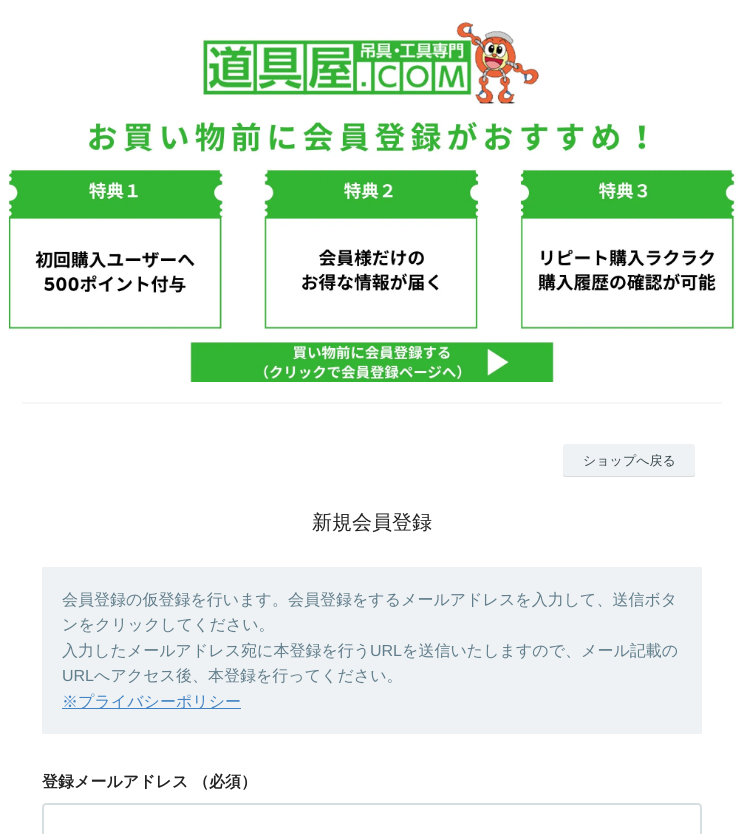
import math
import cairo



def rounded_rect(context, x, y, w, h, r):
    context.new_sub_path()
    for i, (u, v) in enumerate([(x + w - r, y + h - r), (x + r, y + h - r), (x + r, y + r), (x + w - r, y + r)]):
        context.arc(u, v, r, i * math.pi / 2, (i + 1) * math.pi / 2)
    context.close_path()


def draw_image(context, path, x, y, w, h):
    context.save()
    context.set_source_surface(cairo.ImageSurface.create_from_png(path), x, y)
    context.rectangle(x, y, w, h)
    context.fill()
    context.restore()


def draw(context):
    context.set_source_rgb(1, 1, 1)
    context.paint()
    draw_image(context, "images/1.png", 8, 21, 729, 361)
    context.set_source_rgb(246 / 255, 246 / 255, 246 / 255)
    context.rectangle(22, 402, 700, 2)
    context.fill()
    context.set_source_rgb(239 / 255, 242 / 255, 244 / 255)
    rounded_rect(context, 563, 444, 132, 33, 3)
    context.fill()
    context.set_source_rgba(0, 0, 0, 0.1)
    context.new_path()
    context.move_to(563, 473)
    context.curve_to(563, 475, 563, 477, 565, 477)
    context.line_to(693, 477)
    context.curve_to(695, 477, 695, 475, 695, 473)
    context.curve_to(695, 474, 694, 476, 692, 476)
    context.line_to(566, 476)
    context.curve_to(564, 476, 563, 474, 563, 473)
    context.close_path()
    context.fill()
    context.set_source_rgb(239 / 255, 242 / 255, 244 / 255)
    context.rectangle(42, 567, 660, 167)
    context.fill()
    context.set_source_rgb(65 / 255, 131 / 255, 196 / 255)
    context.rectangle(62, 708, 179, 1)
    context.fill()
    rounded_rect(context, 43, 804, 658, 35, 3)
    context.set_source_rgb(215 / 255, 222 / 255, 226 / 255)
    context.stroke()
    context.select_font_face("WenQuanYi Zen Hei Medium")
    context.set_font_size(13)
    context.set_source_rgb(53 / 255, 69 / 255, 76 / 255)
    context.move_to(583, 465)
    context.show_text("ショップへ戻る")
    context.set_font_size(20)
    context.set_source_rgb(34 / 255, 34 / 255, 34 / 255)
    context.move_to(312, 529)
    context.show_text("新規会員登録")
    context.set_font_size(16)
    context.set_source_rgb(96 / 255, 125 / 255, 139 / 255)
    context.move_to(62, 605)
    context.show_text("会員登録の仮登録を行います。会員登録をするメールアドレスを入力して、送信ボタ")
    context.move_to(62, 630)
    context.show_text("ンをクリックしてください。")
    context.move_to(62, 656)
    context.show_text("入力したメールアドレス宛に本登録を行う")
    context.select_font_face("Liberation Sans")
    context.move_to(370, 656)
    context.show_text("URL")
    context.select_font_face("WenQuanYi Zen Hei Medium")
    context.move_to(402, 656)
    context.show_text("を送信いたしますので、メール記載の")
    context.select_font_face("Liberation Sans")
    context.move_to(62, 681)
    context.show_text("URL")
    context.select_font_face("WenQuanYi Zen Hei Medium")
    context.move_to(94, 681)
    context.show_text("へアクセス後、本登録を行ってください。")
    context.set_source_rgb(65 / 255, 131 / 255, 196 / 255)
    context.move_to(62, 707)
    context.show_text("※プライバシーポリシー")
    context.select_font_face("WenQuanYi Zen Hei", cairo.FontSlant.NORMAL, cairo.FontWeight.BOLD)
    context.set_source_rgb(34 / 255, 34 / 255, 34 / 255)
    context.move_to(42, 787)
    context.show_text("登録メールアドレス")
    context.move_to(193, 787)
    context.show_text("（必須）")


surface = cairo.ImageSurface(cairo.Format.RGB24, 744, 834)
context = cairo.Context(surface)
options = cairo.FontOptions()
options.set_hint_metrics(cairo.HintMetrics.OFF)
options.set_hint_style(cairo.HintStyle.NONE)
context.set_font_options(options)
context.set_miter_limit(4)
draw(context)
surface.write_to_png("out.png")
